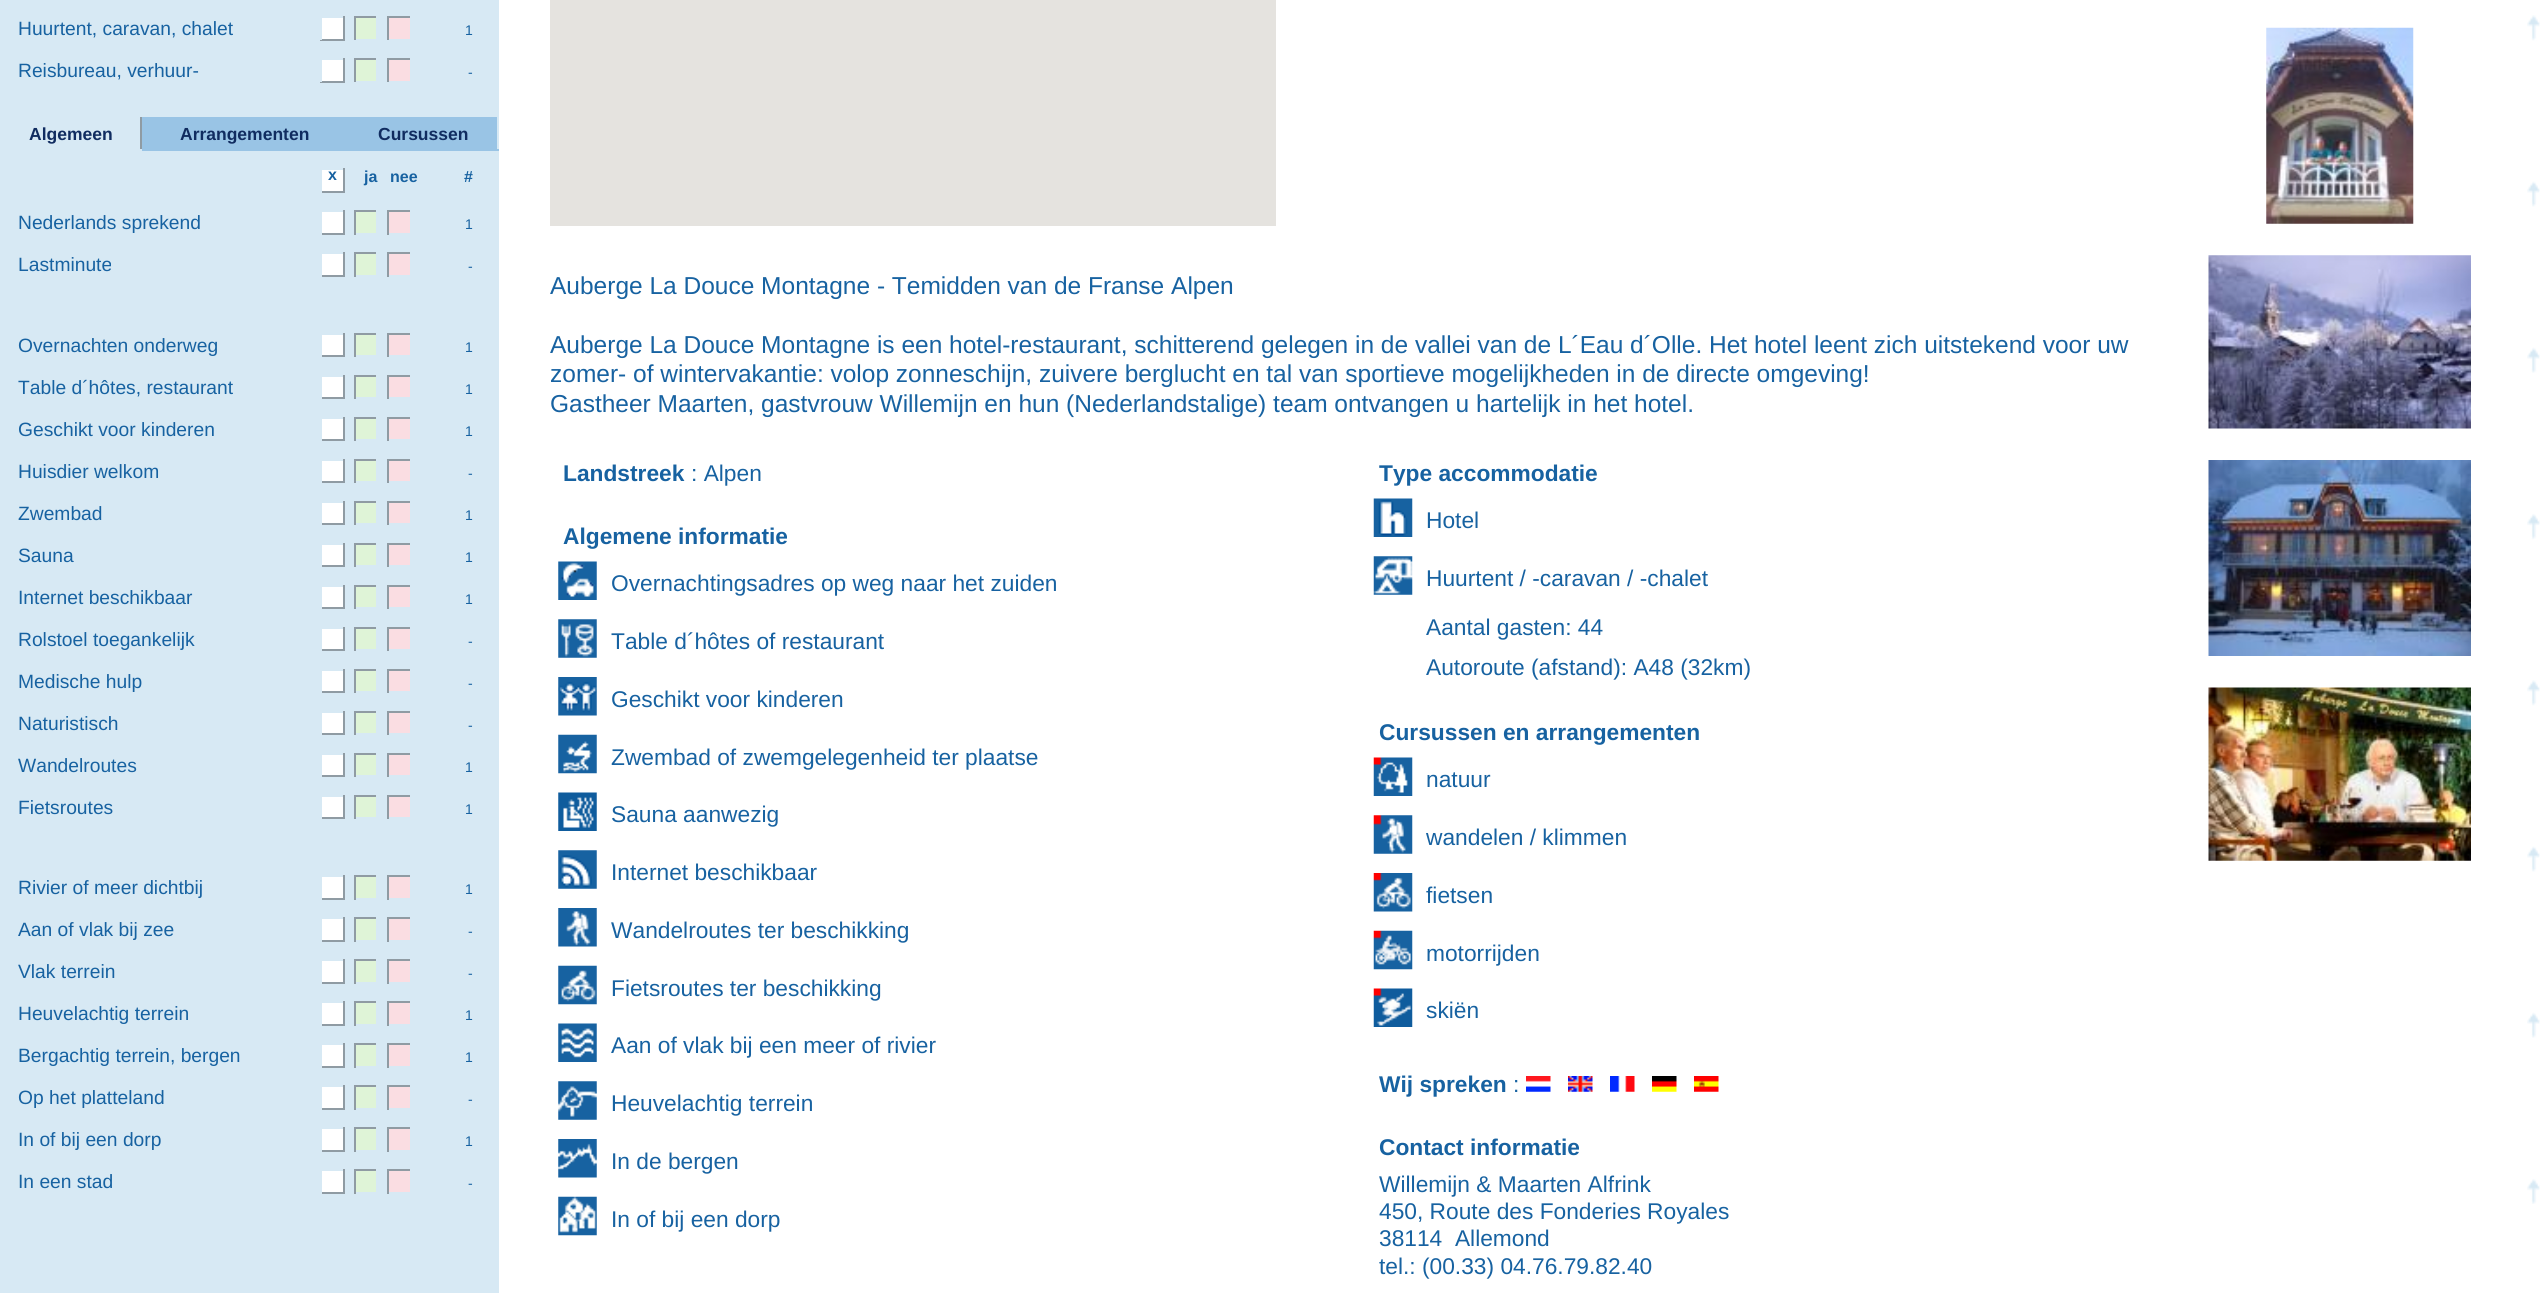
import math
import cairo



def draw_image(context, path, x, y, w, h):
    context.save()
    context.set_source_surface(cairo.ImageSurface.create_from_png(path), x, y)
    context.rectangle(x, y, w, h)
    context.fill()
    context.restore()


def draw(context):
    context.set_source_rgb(1, 1, 1)
    context.paint()
    context.set_source_rgb(215 / 255, 233 / 255, 244 / 255)
    context.rectangle(0, 0, 499, 1293)
    context.fill()
    context.set_source_rgb(1, 1, 1)
    context.rectangle(322, 18, 21, 21)
    context.fill()
    context.set_source_rgb(143 / 255, 155 / 255, 163 / 255)
    context.rectangle(343, 16, 2, 24)
    context.fill()
    context.rectangle(320, 39, 25, 2)
    context.fill()
    context.set_source_rgb(215 / 255, 233 / 255, 244 / 255)
    context.rectangle(320, 39, 2, 1)
    context.fill()
    context.set_source_rgb(223 / 255, 244 / 255, 215 / 255)
    context.rectangle(356, 18, 20, 21)
    context.fill()
    context.set_source_rgb(143 / 255, 155 / 255, 163 / 255)
    context.rectangle(354, 16, 24, 2)
    context.fill()
    context.set_source_rgb(215 / 255, 233 / 255, 244 / 255)
    context.rectangle(376, 16, 2, 2)
    context.fill()
    context.set_source_rgb(143 / 255, 155 / 255, 163 / 255)
    context.rectangle(354, 16, 2, 24)
    context.fill()
    context.set_source_rgb(250 / 255, 221 / 255, 226 / 255)
    context.rectangle(389, 18, 21, 21)
    context.fill()
    context.set_source_rgb(143 / 255, 155 / 255, 163 / 255)
    context.rectangle(387, 16, 24, 2)
    context.fill()
    context.set_source_rgb(215 / 255, 233 / 255, 244 / 255)
    context.rectangle(410, 16, 1, 2)
    context.fill()
    context.set_source_rgb(143 / 255, 155 / 255, 163 / 255)
    context.rectangle(387, 16, 2, 24)
    context.fill()
    context.set_source_rgb(1, 1, 1)
    context.rectangle(322, 60, 21, 21)
    context.fill()
    context.set_source_rgb(143 / 255, 155 / 255, 163 / 255)
    context.rectangle(343, 58, 2, 24)
    context.fill()
    context.rectangle(320, 81, 25, 2)
    context.fill()
    context.set_source_rgb(215 / 255, 233 / 255, 244 / 255)
    context.rectangle(320, 81, 2, 1)
    context.fill()
    context.set_source_rgb(223 / 255, 244 / 255, 215 / 255)
    context.rectangle(356, 60, 20, 21)
    context.fill()
    context.set_source_rgb(143 / 255, 155 / 255, 163 / 255)
    context.rectangle(354, 58, 24, 2)
    context.fill()
    context.set_source_rgb(215 / 255, 233 / 255, 244 / 255)
    context.rectangle(376, 58, 2, 2)
    context.fill()
    context.set_source_rgb(143 / 255, 155 / 255, 163 / 255)
    context.rectangle(354, 58, 2, 24)
    context.fill()
    context.set_source_rgb(250 / 255, 221 / 255, 226 / 255)
    context.rectangle(389, 60, 21, 21)
    context.fill()
    context.set_source_rgb(143 / 255, 155 / 255, 163 / 255)
    context.rectangle(387, 58, 24, 2)
    context.fill()
    context.set_source_rgb(215 / 255, 233 / 255, 244 / 255)
    context.rectangle(410, 58, 1, 2)
    context.fill()
    context.set_source_rgb(143 / 255, 155 / 255, 163 / 255)
    context.rectangle(387, 58, 2, 24)
    context.fill()
    context.rectangle(140, 117, 2, 34)
    context.fill()
    context.set_source_rgb(215 / 255, 233 / 255, 244 / 255)
    context.rectangle(140, 149, 2, 2)
    context.fill()
    context.set_source_rgb(153 / 255, 196 / 255, 229 / 255)
    context.rectangle(142, 117, 205, 34)
    context.fill()
    context.rectangle(347, 117, 150, 32)
    context.fill()
    context.rectangle(347, 149, 152, 2)
    context.fill()
    context.set_source_rgb(1, 1, 1)
    context.rectangle(322, 170, 21, 21)
    context.fill()
    context.set_source_rgb(143 / 255, 155 / 255, 163 / 255)
    context.rectangle(343, 168, 2, 25)
    context.fill()
    context.rectangle(320, 191, 25, 2)
    context.fill()
    context.set_source_rgb(215 / 255, 233 / 255, 244 / 255)
    context.rectangle(320, 191, 2, 2)
    context.fill()
    context.set_source_rgb(1, 1, 1)
    context.rectangle(322, 212, 21, 21)
    context.fill()
    context.set_source_rgb(143 / 255, 155 / 255, 163 / 255)
    context.rectangle(343, 210, 2, 25)
    context.fill()
    context.rectangle(320, 233, 25, 2)
    context.fill()
    context.set_source_rgb(215 / 255, 233 / 255, 244 / 255)
    context.rectangle(320, 233, 2, 2)
    context.fill()
    context.set_source_rgb(223 / 255, 244 / 255, 215 / 255)
    context.rectangle(356, 212, 20, 21)
    context.fill()
    context.set_source_rgb(143 / 255, 155 / 255, 163 / 255)
    context.rectangle(354, 210, 24, 2)
    context.fill()
    context.set_source_rgb(215 / 255, 233 / 255, 244 / 255)
    context.rectangle(376, 210, 2, 2)
    context.fill()
    context.set_source_rgb(143 / 255, 155 / 255, 163 / 255)
    context.rectangle(354, 210, 2, 25)
    context.fill()
    context.set_source_rgb(250 / 255, 221 / 255, 226 / 255)
    context.rectangle(389, 212, 21, 21)
    context.fill()
    context.set_source_rgb(143 / 255, 155 / 255, 163 / 255)
    context.rectangle(387, 210, 24, 2)
    context.fill()
    context.set_source_rgb(215 / 255, 233 / 255, 244 / 255)
    context.rectangle(410, 210, 1, 2)
    context.fill()
    context.set_source_rgb(143 / 255, 155 / 255, 163 / 255)
    context.rectangle(387, 210, 2, 25)
    context.fill()
    context.set_source_rgb(1, 1, 1)
    context.rectangle(322, 254, 21, 21)
    context.fill()
    context.set_source_rgb(143 / 255, 155 / 255, 163 / 255)
    context.rectangle(343, 252, 2, 25)
    context.fill()
    context.rectangle(320, 275, 25, 2)
    context.fill()
    context.set_source_rgb(215 / 255, 233 / 255, 244 / 255)
    context.rectangle(320, 275, 2, 2)
    context.fill()
    context.set_source_rgb(223 / 255, 244 / 255, 215 / 255)
    context.rectangle(356, 254, 20, 21)
    context.fill()
    context.set_source_rgb(143 / 255, 155 / 255, 163 / 255)
    context.rectangle(354, 252, 24, 2)
    context.fill()
    context.set_source_rgb(215 / 255, 233 / 255, 244 / 255)
    context.rectangle(376, 252, 2, 2)
    context.fill()
    context.set_source_rgb(143 / 255, 155 / 255, 163 / 255)
    context.rectangle(354, 252, 2, 25)
    context.fill()
    context.set_source_rgb(250 / 255, 221 / 255, 226 / 255)
    context.rectangle(389, 254, 21, 21)
    context.fill()
    context.set_source_rgb(143 / 255, 155 / 255, 163 / 255)
    context.rectangle(387, 252, 24, 2)
    context.fill()
    context.set_source_rgb(215 / 255, 233 / 255, 244 / 255)
    context.rectangle(410, 252, 1, 2)
    context.fill()
    context.set_source_rgb(143 / 255, 155 / 255, 163 / 255)
    context.rectangle(387, 252, 2, 25)
    context.fill()
    context.set_source_rgb(1, 1, 1)
    context.rectangle(322, 335, 21, 20)
    context.fill()
    context.set_source_rgb(143 / 255, 155 / 255, 163 / 255)
    context.rectangle(343, 333, 2, 24)
    context.fill()
    context.rectangle(320, 355, 25, 2)
    context.fill()
    context.set_source_rgb(215 / 255, 233 / 255, 244 / 255)
    context.rectangle(320, 355, 2, 2)
    context.fill()
    context.set_source_rgb(223 / 255, 244 / 255, 215 / 255)
    context.rectangle(356, 335, 20, 20)
    context.fill()
    context.set_source_rgb(143 / 255, 155 / 255, 163 / 255)
    context.rectangle(354, 333, 24, 2)
    context.fill()
    context.set_source_rgb(215 / 255, 233 / 255, 244 / 255)
    context.rectangle(376, 333, 2, 2)
    context.fill()
    context.set_source_rgb(143 / 255, 155 / 255, 163 / 255)
    context.rectangle(354, 333, 2, 24)
    context.fill()
    context.set_source_rgb(250 / 255, 221 / 255, 226 / 255)
    context.rectangle(389, 335, 21, 20)
    context.fill()
    context.set_source_rgb(143 / 255, 155 / 255, 163 / 255)
    context.rectangle(387, 333, 24, 2)
    context.fill()
    context.set_source_rgb(215 / 255, 233 / 255, 244 / 255)
    context.rectangle(410, 333, 1, 2)
    context.fill()
    context.set_source_rgb(143 / 255, 155 / 255, 163 / 255)
    context.rectangle(387, 333, 2, 24)
    context.fill()
    context.set_source_rgb(1, 1, 1)
    context.rectangle(322, 377, 21, 20)
    context.fill()
    context.set_source_rgb(143 / 255, 155 / 255, 163 / 255)
    context.rectangle(343, 375, 2, 24)
    context.fill()
    context.rectangle(320, 397, 25, 2)
    context.fill()
    context.set_source_rgb(215 / 255, 233 / 255, 244 / 255)
    context.rectangle(320, 397, 2, 2)
    context.fill()
    context.set_source_rgb(223 / 255, 244 / 255, 215 / 255)
    context.rectangle(356, 377, 20, 20)
    context.fill()
    context.set_source_rgb(143 / 255, 155 / 255, 163 / 255)
    context.rectangle(354, 375, 24, 2)
    context.fill()
    context.set_source_rgb(215 / 255, 233 / 255, 244 / 255)
    context.rectangle(376, 375, 2, 2)
    context.fill()
    context.set_source_rgb(143 / 255, 155 / 255, 163 / 255)
    context.rectangle(354, 375, 2, 24)
    context.fill()
    context.set_source_rgb(250 / 255, 221 / 255, 226 / 255)
    context.rectangle(389, 377, 21, 20)
    context.fill()
    context.set_source_rgb(143 / 255, 155 / 255, 163 / 255)
    context.rectangle(387, 375, 24, 2)
    context.fill()
    context.set_source_rgb(215 / 255, 233 / 255, 244 / 255)
    context.rectangle(410, 375, 1, 2)
    context.fill()
    context.set_source_rgb(143 / 255, 155 / 255, 163 / 255)
    context.rectangle(387, 375, 2, 24)
    context.fill()
    context.set_source_rgb(1, 1, 1)
    context.rectangle(322, 419, 21, 20)
    context.fill()
    context.set_source_rgb(143 / 255, 155 / 255, 163 / 255)
    context.rectangle(343, 417, 2, 24)
    context.fill()
    context.rectangle(320, 439, 25, 2)
    context.fill()
    context.set_source_rgb(215 / 255, 233 / 255, 244 / 255)
    context.rectangle(320, 439, 2, 2)
    context.fill()
    context.set_source_rgb(223 / 255, 244 / 255, 215 / 255)
    context.rectangle(356, 419, 20, 20)
    context.fill()
    context.set_source_rgb(143 / 255, 155 / 255, 163 / 255)
    context.rectangle(354, 417, 24, 2)
    context.fill()
    context.set_source_rgb(215 / 255, 233 / 255, 244 / 255)
    context.rectangle(376, 417, 2, 2)
    context.fill()
    context.set_source_rgb(143 / 255, 155 / 255, 163 / 255)
    context.rectangle(354, 417, 2, 24)
    context.fill()
    context.set_source_rgb(250 / 255, 221 / 255, 226 / 255)
    context.rectangle(389, 419, 21, 20)
    context.fill()
    context.set_source_rgb(143 / 255, 155 / 255, 163 / 255)
    context.rectangle(387, 417, 24, 2)
    context.fill()
    context.set_source_rgb(215 / 255, 233 / 255, 244 / 255)
    context.rectangle(410, 417, 1, 2)
    context.fill()
    context.set_source_rgb(143 / 255, 155 / 255, 163 / 255)
    context.rectangle(387, 417, 2, 24)
    context.fill()
    context.set_source_rgb(1, 1, 1)
    context.rectangle(322, 461, 21, 20)
    context.fill()
    context.set_source_rgb(143 / 255, 155 / 255, 163 / 255)
    context.rectangle(343, 459, 2, 24)
    context.fill()
    context.rectangle(320, 481, 25, 2)
    context.fill()
    context.set_source_rgb(215 / 255, 233 / 255, 244 / 255)
    context.rectangle(320, 481, 2, 2)
    context.fill()
    context.set_source_rgb(223 / 255, 244 / 255, 215 / 255)
    context.rectangle(356, 461, 20, 20)
    context.fill()
    context.set_source_rgb(143 / 255, 155 / 255, 163 / 255)
    context.rectangle(354, 459, 24, 2)
    context.fill()
    context.set_source_rgb(215 / 255, 233 / 255, 244 / 255)
    context.rectangle(376, 459, 2, 2)
    context.fill()
    context.set_source_rgb(143 / 255, 155 / 255, 163 / 255)
    context.rectangle(354, 459, 2, 24)
    context.fill()
    context.set_source_rgb(250 / 255, 221 / 255, 226 / 255)
    context.rectangle(389, 461, 21, 20)
    context.fill()
    context.set_source_rgb(143 / 255, 155 / 255, 163 / 255)
    context.rectangle(387, 459, 24, 2)
    context.fill()
    context.set_source_rgb(215 / 255, 233 / 255, 244 / 255)
    context.rectangle(410, 459, 1, 2)
    context.fill()
    context.set_source_rgb(143 / 255, 155 / 255, 163 / 255)
    context.rectangle(387, 459, 2, 24)
    context.fill()
    context.set_source_rgb(1, 1, 1)
    context.rectangle(322, 503, 21, 20)
    context.fill()
    context.set_source_rgb(143 / 255, 155 / 255, 163 / 255)
    context.rectangle(343, 501, 2, 24)
    context.fill()
    context.rectangle(320, 523, 25, 2)
    context.fill()
    context.set_source_rgb(215 / 255, 233 / 255, 244 / 255)
    context.rectangle(320, 523, 2, 2)
    context.fill()
    context.set_source_rgb(223 / 255, 244 / 255, 215 / 255)
    context.rectangle(356, 503, 20, 20)
    context.fill()
    context.set_source_rgb(143 / 255, 155 / 255, 163 / 255)
    context.rectangle(354, 501, 24, 2)
    context.fill()
    context.set_source_rgb(215 / 255, 233 / 255, 244 / 255)
    context.rectangle(376, 501, 2, 2)
    context.fill()
    context.set_source_rgb(143 / 255, 155 / 255, 163 / 255)
    context.rectangle(354, 501, 2, 24)
    context.fill()
    context.set_source_rgb(250 / 255, 221 / 255, 226 / 255)
    context.rectangle(389, 503, 21, 20)
    context.fill()
    context.set_source_rgb(143 / 255, 155 / 255, 163 / 255)
    context.rectangle(387, 501, 24, 2)
    context.fill()
    context.set_source_rgb(215 / 255, 233 / 255, 244 / 255)
    context.rectangle(410, 501, 1, 2)
    context.fill()
    context.set_source_rgb(143 / 255, 155 / 255, 163 / 255)
    context.rectangle(387, 501, 2, 24)
    context.fill()
    context.set_source_rgb(1, 1, 1)
    context.rectangle(322, 545, 21, 20)
    context.fill()
    context.set_source_rgb(143 / 255, 155 / 255, 163 / 255)
    context.rectangle(343, 543, 2, 24)
    context.fill()
    context.rectangle(320, 565, 25, 2)
    context.fill()
    context.set_source_rgb(215 / 255, 233 / 255, 244 / 255)
    context.rectangle(320, 565, 2, 2)
    context.fill()
    context.set_source_rgb(223 / 255, 244 / 255, 215 / 255)
    context.rectangle(356, 545, 20, 20)
    context.fill()
    context.set_source_rgb(143 / 255, 155 / 255, 163 / 255)
    context.rectangle(354, 543, 24, 2)
    context.fill()
    context.set_source_rgb(215 / 255, 233 / 255, 244 / 255)
    context.rectangle(376, 543, 2, 2)
    context.fill()
    context.set_source_rgb(143 / 255, 155 / 255, 163 / 255)
    context.rectangle(354, 543, 2, 24)
    context.fill()
    context.set_source_rgb(250 / 255, 221 / 255, 226 / 255)
    context.rectangle(389, 545, 21, 20)
    context.fill()
    context.set_source_rgb(143 / 255, 155 / 255, 163 / 255)
    context.rectangle(387, 543, 24, 2)
    context.fill()
    context.set_source_rgb(215 / 255, 233 / 255, 244 / 255)
    context.rectangle(410, 543, 1, 2)
    context.fill()
    context.set_source_rgb(143 / 255, 155 / 255, 163 / 255)
    context.rectangle(387, 543, 2, 24)
    context.fill()
    context.set_source_rgb(1, 1, 1)
    context.rectangle(322, 587, 21, 20)
    context.fill()
    context.set_source_rgb(143 / 255, 155 / 255, 163 / 255)
    context.rectangle(343, 585, 2, 24)
    context.fill()
    context.rectangle(320, 607, 25, 2)
    context.fill()
    context.set_source_rgb(215 / 255, 233 / 255, 244 / 255)
    context.rectangle(320, 607, 2, 2)
    context.fill()
    context.set_source_rgb(223 / 255, 244 / 255, 215 / 255)
    context.rectangle(356, 587, 20, 20)
    context.fill()
    context.set_source_rgb(143 / 255, 155 / 255, 163 / 255)
    context.rectangle(354, 585, 24, 2)
    context.fill()
    context.set_source_rgb(215 / 255, 233 / 255, 244 / 255)
    context.rectangle(376, 585, 2, 2)
    context.fill()
    context.set_source_rgb(143 / 255, 155 / 255, 163 / 255)
    context.rectangle(354, 585, 2, 24)
    context.fill()
    context.set_source_rgb(250 / 255, 221 / 255, 226 / 255)
    context.rectangle(389, 587, 21, 20)
    context.fill()
    context.set_source_rgb(143 / 255, 155 / 255, 163 / 255)
    context.rectangle(387, 585, 24, 2)
    context.fill()
    context.set_source_rgb(215 / 255, 233 / 255, 244 / 255)
    context.rectangle(410, 585, 1, 2)
    context.fill()
    context.set_source_rgb(143 / 255, 155 / 255, 163 / 255)
    context.rectangle(387, 585, 2, 24)
    context.fill()
    context.set_source_rgb(1, 1, 1)
    context.rectangle(322, 629, 21, 20)
    context.fill()
    context.set_source_rgb(143 / 255, 155 / 255, 163 / 255)
    context.rectangle(343, 627, 2, 24)
    context.fill()
    context.rectangle(320, 649, 25, 2)
    context.fill()
    context.set_source_rgb(215 / 255, 233 / 255, 244 / 255)
    context.rectangle(320, 649, 2, 2)
    context.fill()
    context.set_source_rgb(223 / 255, 244 / 255, 215 / 255)
    context.rectangle(356, 629, 20, 20)
    context.fill()
    context.set_source_rgb(143 / 255, 155 / 255, 163 / 255)
    context.rectangle(354, 627, 24, 2)
    context.fill()
    context.set_source_rgb(215 / 255, 233 / 255, 244 / 255)
    context.rectangle(376, 627, 2, 2)
    context.fill()
    context.set_source_rgb(143 / 255, 155 / 255, 163 / 255)
    context.rectangle(354, 627, 2, 24)
    context.fill()
    context.set_source_rgb(250 / 255, 221 / 255, 226 / 255)
    context.rectangle(389, 629, 21, 20)
    context.fill()
    context.set_source_rgb(143 / 255, 155 / 255, 163 / 255)
    context.rectangle(387, 627, 24, 2)
    context.fill()
    context.set_source_rgb(215 / 255, 233 / 255, 244 / 255)
    context.rectangle(410, 627, 1, 2)
    context.fill()
    context.set_source_rgb(143 / 255, 155 / 255, 163 / 255)
    context.rectangle(387, 627, 2, 24)
    context.fill()
    context.set_source_rgb(1, 1, 1)
    context.rectangle(322, 671, 21, 20)
    context.fill()
    context.set_source_rgb(143 / 255, 155 / 255, 163 / 255)
    context.rectangle(343, 669, 2, 24)
    context.fill()
    context.rectangle(320, 691, 25, 2)
    context.fill()
    context.set_source_rgb(215 / 255, 233 / 255, 244 / 255)
    context.rectangle(320, 691, 2, 2)
    context.fill()
    context.set_source_rgb(223 / 255, 244 / 255, 215 / 255)
    context.rectangle(356, 671, 20, 20)
    context.fill()
    context.set_source_rgb(143 / 255, 155 / 255, 163 / 255)
    context.rectangle(354, 669, 24, 2)
    context.fill()
    context.set_source_rgb(215 / 255, 233 / 255, 244 / 255)
    context.rectangle(376, 669, 2, 2)
    context.fill()
    context.set_source_rgb(143 / 255, 155 / 255, 163 / 255)
    context.rectangle(354, 669, 2, 24)
    context.fill()
    context.set_source_rgb(250 / 255, 221 / 255, 226 / 255)
    context.rectangle(389, 671, 21, 20)
    context.fill()
    context.set_source_rgb(143 / 255, 155 / 255, 163 / 255)
    context.rectangle(387, 669, 24, 2)
    context.fill()
    context.set_source_rgb(215 / 255, 233 / 255, 244 / 255)
    context.rectangle(410, 669, 1, 2)
    context.fill()
    context.set_source_rgb(143 / 255, 155 / 255, 163 / 255)
    context.rectangle(387, 669, 2, 24)
    context.fill()
    context.set_source_rgb(1, 1, 1)
    context.rectangle(322, 713, 21, 20)
    context.fill()
    context.set_source_rgb(143 / 255, 155 / 255, 163 / 255)
    context.rectangle(343, 711, 2, 24)
    context.fill()
    context.rectangle(320, 733, 25, 2)
    context.fill()
    context.set_source_rgb(215 / 255, 233 / 255, 244 / 255)
    context.rectangle(320, 733, 2, 2)
    context.fill()
    context.set_source_rgb(223 / 255, 244 / 255, 215 / 255)
    context.rectangle(356, 713, 20, 20)
    context.fill()
    context.set_source_rgb(143 / 255, 155 / 255, 163 / 255)
    context.rectangle(354, 711, 24, 2)
    context.fill()
    context.set_source_rgb(215 / 255, 233 / 255, 244 / 255)
    context.rectangle(376, 711, 2, 2)
    context.fill()
    context.set_source_rgb(143 / 255, 155 / 255, 163 / 255)
    context.rectangle(354, 711, 2, 24)
    context.fill()
    context.set_source_rgb(250 / 255, 221 / 255, 226 / 255)
    context.rectangle(389, 713, 21, 20)
    context.fill()
    context.set_source_rgb(143 / 255, 155 / 255, 163 / 255)
    context.rectangle(387, 711, 24, 2)
    context.fill()
    context.set_source_rgb(215 / 255, 233 / 255, 244 / 255)
    context.rectangle(410, 711, 1, 2)
    context.fill()
    context.set_source_rgb(143 / 255, 155 / 255, 163 / 255)
    context.rectangle(387, 711, 2, 24)
    context.fill()
    context.set_source_rgb(1, 1, 1)
    context.rectangle(322, 755, 21, 20)
    context.fill()
    context.set_source_rgb(143 / 255, 155 / 255, 163 / 255)
    context.rectangle(343, 753, 2, 24)
    context.fill()
    context.rectangle(320, 775, 25, 2)
    context.fill()
    context.set_source_rgb(215 / 255, 233 / 255, 244 / 255)
    context.rectangle(320, 775, 2, 2)
    context.fill()
    context.set_source_rgb(223 / 255, 244 / 255, 215 / 255)
    context.rectangle(356, 755, 20, 20)
    context.fill()
    context.set_source_rgb(143 / 255, 155 / 255, 163 / 255)
    context.rectangle(354, 753, 24, 2)
    context.fill()
    context.set_source_rgb(215 / 255, 233 / 255, 244 / 255)
    context.rectangle(376, 753, 2, 2)
    context.fill()
    context.set_source_rgb(143 / 255, 155 / 255, 163 / 255)
    context.rectangle(354, 753, 2, 24)
    context.fill()
    context.set_source_rgb(250 / 255, 221 / 255, 226 / 255)
    context.rectangle(389, 755, 21, 20)
    context.fill()
    context.set_source_rgb(143 / 255, 155 / 255, 163 / 255)
    context.rectangle(387, 753, 24, 2)
    context.fill()
    context.set_source_rgb(215 / 255, 233 / 255, 244 / 255)
    context.rectangle(410, 753, 1, 2)
    context.fill()
    context.set_source_rgb(143 / 255, 155 / 255, 163 / 255)
    context.rectangle(387, 753, 2, 24)
    context.fill()
    context.set_source_rgb(1, 1, 1)
    context.rectangle(322, 797, 21, 20)
    context.fill()
    context.set_source_rgb(143 / 255, 155 / 255, 163 / 255)
    context.rectangle(343, 795, 2, 24)
    context.fill()
    context.rectangle(320, 817, 25, 2)
    context.fill()
    context.set_source_rgb(215 / 255, 233 / 255, 244 / 255)
    context.rectangle(320, 817, 2, 2)
    context.fill()
    context.set_source_rgb(223 / 255, 244 / 255, 215 / 255)
    context.rectangle(356, 797, 20, 20)
    context.fill()
    context.set_source_rgb(143 / 255, 155 / 255, 163 / 255)
    context.rectangle(354, 795, 24, 2)
    context.fill()
    context.set_source_rgb(215 / 255, 233 / 255, 244 / 255)
    context.rectangle(376, 795, 2, 2)
    context.fill()
    context.set_source_rgb(143 / 255, 155 / 255, 163 / 255)
    context.rectangle(354, 795, 2, 24)
    context.fill()
    context.set_source_rgb(250 / 255, 221 / 255, 226 / 255)
    context.rectangle(389, 797, 21, 20)
    context.fill()
    context.set_source_rgb(143 / 255, 155 / 255, 163 / 255)
    context.rectangle(387, 795, 24, 2)
    context.fill()
    context.set_source_rgb(215 / 255, 233 / 255, 244 / 255)
    context.rectangle(410, 795, 1, 2)
    context.fill()
    context.set_source_rgb(143 / 255, 155 / 255, 163 / 255)
    context.rectangle(387, 795, 2, 24)
    context.fill()
    context.set_source_rgb(1, 1, 1)
    context.rectangle(322, 877, 21, 21)
    context.fill()
    context.set_source_rgb(143 / 255, 155 / 255, 163 / 255)
    context.rectangle(343, 875, 2, 25)
    context.fill()
    context.rectangle(320, 898, 25, 2)
    context.fill()
    context.set_source_rgb(215 / 255, 233 / 255, 244 / 255)
    context.rectangle(320, 898, 2, 2)
    context.fill()
    context.set_source_rgb(223 / 255, 244 / 255, 215 / 255)
    context.rectangle(356, 877, 20, 21)
    context.fill()
    context.set_source_rgb(143 / 255, 155 / 255, 163 / 255)
    context.rectangle(354, 875, 24, 2)
    context.fill()
    context.set_source_rgb(215 / 255, 233 / 255, 244 / 255)
    context.rectangle(376, 875, 2, 2)
    context.fill()
    context.set_source_rgb(143 / 255, 155 / 255, 163 / 255)
    context.rectangle(354, 875, 2, 25)
    context.fill()
    context.set_source_rgb(250 / 255, 221 / 255, 226 / 255)
    context.rectangle(389, 877, 21, 21)
    context.fill()
    context.set_source_rgb(143 / 255, 155 / 255, 163 / 255)
    context.rectangle(387, 875, 24, 2)
    context.fill()
    context.set_source_rgb(215 / 255, 233 / 255, 244 / 255)
    context.rectangle(410, 875, 1, 2)
    context.fill()
    context.set_source_rgb(143 / 255, 155 / 255, 163 / 255)
    context.rectangle(387, 875, 2, 25)
    context.fill()
    context.set_source_rgb(1, 1, 1)
    context.rectangle(322, 919, 21, 21)
    context.fill()
    context.set_source_rgb(143 / 255, 155 / 255, 163 / 255)
    context.rectangle(343, 917, 2, 25)
    context.fill()
    context.rectangle(320, 940, 25, 2)
    context.fill()
    context.set_source_rgb(215 / 255, 233 / 255, 244 / 255)
    context.rectangle(320, 940, 2, 2)
    context.fill()
    context.set_source_rgb(223 / 255, 244 / 255, 215 / 255)
    context.rectangle(356, 919, 20, 21)
    context.fill()
    context.set_source_rgb(143 / 255, 155 / 255, 163 / 255)
    context.rectangle(354, 917, 24, 2)
    context.fill()
    context.set_source_rgb(215 / 255, 233 / 255, 244 / 255)
    context.rectangle(376, 917, 2, 2)
    context.fill()
    context.set_source_rgb(143 / 255, 155 / 255, 163 / 255)
    context.rectangle(354, 917, 2, 25)
    context.fill()
    context.set_source_rgb(250 / 255, 221 / 255, 226 / 255)
    context.rectangle(389, 919, 21, 21)
    context.fill()
    context.set_source_rgb(143 / 255, 155 / 255, 163 / 255)
    context.rectangle(387, 917, 24, 2)
    context.fill()
    context.set_source_rgb(215 / 255, 233 / 255, 244 / 255)
    context.rectangle(410, 917, 1, 2)
    context.fill()
    context.set_source_rgb(143 / 255, 155 / 255, 163 / 255)
    context.rectangle(387, 917, 2, 25)
    context.fill()
    context.set_source_rgb(1, 1, 1)
    context.rectangle(322, 961, 21, 21)
    context.fill()
    context.set_source_rgb(143 / 255, 155 / 255, 163 / 255)
    context.rectangle(343, 959, 2, 25)
    context.fill()
    context.rectangle(320, 982, 25, 2)
    context.fill()
    context.set_source_rgb(215 / 255, 233 / 255, 244 / 255)
    context.rectangle(320, 982, 2, 2)
    context.fill()
    context.set_source_rgb(223 / 255, 244 / 255, 215 / 255)
    context.rectangle(356, 961, 20, 21)
    context.fill()
    context.set_source_rgb(143 / 255, 155 / 255, 163 / 255)
    context.rectangle(354, 959, 24, 2)
    context.fill()
    context.set_source_rgb(215 / 255, 233 / 255, 244 / 255)
    context.rectangle(376, 959, 2, 2)
    context.fill()
    context.set_source_rgb(143 / 255, 155 / 255, 163 / 255)
    context.rectangle(354, 959, 2, 25)
    context.fill()
    context.set_source_rgb(250 / 255, 221 / 255, 226 / 255)
    context.rectangle(389, 961, 21, 21)
    context.fill()
    context.set_source_rgb(143 / 255, 155 / 255, 163 / 255)
    context.rectangle(387, 959, 24, 2)
    context.fill()
    context.set_source_rgb(215 / 255, 233 / 255, 244 / 255)
    context.rectangle(410, 959, 1, 2)
    context.fill()
    context.set_source_rgb(143 / 255, 155 / 255, 163 / 255)
    context.rectangle(387, 959, 2, 25)
    context.fill()
    context.set_source_rgb(1, 1, 1)
    context.rectangle(322, 1003, 21, 21)
    context.fill()
    context.set_source_rgb(143 / 255, 155 / 255, 163 / 255)
    context.rectangle(343, 1001, 2, 25)
    context.fill()
    context.rectangle(320, 1024, 25, 2)
    context.fill()
    context.set_source_rgb(215 / 255, 233 / 255, 244 / 255)
    context.rectangle(320, 1024, 2, 2)
    context.fill()
    context.set_source_rgb(223 / 255, 244 / 255, 215 / 255)
    context.rectangle(356, 1003, 20, 21)
    context.fill()
    context.set_source_rgb(143 / 255, 155 / 255, 163 / 255)
    context.rectangle(354, 1001, 24, 2)
    context.fill()
    context.set_source_rgb(215 / 255, 233 / 255, 244 / 255)
    context.rectangle(376, 1001, 2, 2)
    context.fill()
    context.set_source_rgb(143 / 255, 155 / 255, 163 / 255)
    context.rectangle(354, 1001, 2, 25)
    context.fill()
    context.set_source_rgb(250 / 255, 221 / 255, 226 / 255)
    context.rectangle(389, 1003, 21, 21)
    context.fill()
    context.set_source_rgb(143 / 255, 155 / 255, 163 / 255)
    context.rectangle(387, 1001, 24, 2)
    context.fill()
    context.set_source_rgb(215 / 255, 233 / 255, 244 / 255)
    context.rectangle(410, 1001, 1, 2)
    context.fill()
    context.set_source_rgb(143 / 255, 155 / 255, 163 / 255)
    context.rectangle(387, 1001, 2, 25)
    context.fill()
    context.set_source_rgb(1, 1, 1)
    context.rectangle(322, 1045, 21, 21)
    context.fill()
    context.set_source_rgb(143 / 255, 155 / 255, 163 / 255)
    context.rectangle(343, 1043, 2, 25)
    context.fill()
    context.rectangle(320, 1066, 25, 2)
    context.fill()
    context.set_source_rgb(215 / 255, 233 / 255, 244 / 255)
    context.rectangle(320, 1066, 2, 2)
    context.fill()
    context.set_source_rgb(223 / 255, 244 / 255, 215 / 255)
    context.rectangle(356, 1045, 20, 21)
    context.fill()
    context.set_source_rgb(143 / 255, 155 / 255, 163 / 255)
    context.rectangle(354, 1043, 24, 2)
    context.fill()
    context.set_source_rgb(215 / 255, 233 / 255, 244 / 255)
    context.rectangle(376, 1043, 2, 2)
    context.fill()
    context.set_source_rgb(143 / 255, 155 / 255, 163 / 255)
    context.rectangle(354, 1043, 2, 25)
    context.fill()
    context.set_source_rgb(250 / 255, 221 / 255, 226 / 255)
    context.rectangle(389, 1045, 21, 21)
    context.fill()
    context.set_source_rgb(143 / 255, 155 / 255, 163 / 255)
    context.rectangle(387, 1043, 24, 2)
    context.fill()
    context.set_source_rgb(215 / 255, 233 / 255, 244 / 255)
    context.rectangle(410, 1043, 1, 2)
    context.fill()
    context.set_source_rgb(143 / 255, 155 / 255, 163 / 255)
    context.rectangle(387, 1043, 2, 25)
    context.fill()
    context.set_source_rgb(1, 1, 1)
    context.rectangle(322, 1087, 21, 21)
    context.fill()
    context.set_source_rgb(143 / 255, 155 / 255, 163 / 255)
    context.rectangle(343, 1085, 2, 25)
    context.fill()
    context.rectangle(320, 1108, 25, 2)
    context.fill()
    context.set_source_rgb(215 / 255, 233 / 255, 244 / 255)
    context.rectangle(320, 1108, 2, 2)
    context.fill()
    context.set_source_rgb(223 / 255, 244 / 255, 215 / 255)
    context.rectangle(356, 1087, 20, 21)
    context.fill()
    context.set_source_rgb(143 / 255, 155 / 255, 163 / 255)
    context.rectangle(354, 1085, 24, 2)
    context.fill()
    context.set_source_rgb(215 / 255, 233 / 255, 244 / 255)
    context.rectangle(376, 1085, 2, 2)
    context.fill()
    context.set_source_rgb(143 / 255, 155 / 255, 163 / 255)
    context.rectangle(354, 1085, 2, 25)
    context.fill()
    context.set_source_rgb(250 / 255, 221 / 255, 226 / 255)
    context.rectangle(389, 1087, 21, 21)
    context.fill()
    context.set_source_rgb(143 / 255, 155 / 255, 163 / 255)
    context.rectangle(387, 1085, 24, 2)
    context.fill()
    context.set_source_rgb(215 / 255, 233 / 255, 244 / 255)
    context.rectangle(410, 1085, 1, 2)
    context.fill()
    context.set_source_rgb(143 / 255, 155 / 255, 163 / 255)
    context.rectangle(387, 1085, 2, 25)
    context.fill()
    context.set_source_rgb(1, 1, 1)
    context.rectangle(322, 1129, 21, 21)
    context.fill()
    context.set_source_rgb(143 / 255, 155 / 255, 163 / 255)
    context.rectangle(343, 1127, 2, 25)
    context.fill()
    context.rectangle(320, 1150, 25, 2)
    context.fill()
    context.set_source_rgb(215 / 255, 233 / 255, 244 / 255)
    context.rectangle(320, 1150, 2, 2)
    context.fill()
    context.set_source_rgb(223 / 255, 244 / 255, 215 / 255)
    context.rectangle(356, 1129, 20, 21)
    context.fill()
    context.set_source_rgb(143 / 255, 155 / 255, 163 / 255)
    context.rectangle(354, 1127, 24, 2)
    context.fill()
    context.set_source_rgb(215 / 255, 233 / 255, 244 / 255)
    context.rectangle(376, 1127, 2, 2)
    context.fill()
    context.set_source_rgb(143 / 255, 155 / 255, 163 / 255)
    context.rectangle(354, 1127, 2, 25)
    context.fill()
    context.set_source_rgb(250 / 255, 221 / 255, 226 / 255)
    context.rectangle(389, 1129, 21, 21)
    context.fill()
    context.set_source_rgb(143 / 255, 155 / 255, 163 / 255)
    context.rectangle(387, 1127, 24, 2)
    context.fill()
    context.set_source_rgb(215 / 255, 233 / 255, 244 / 255)
    context.rectangle(410, 1127, 1, 2)
    context.fill()
    context.set_source_rgb(143 / 255, 155 / 255, 163 / 255)
    context.rectangle(387, 1127, 2, 25)
    context.fill()
    context.set_source_rgb(1, 1, 1)
    context.rectangle(322, 1171, 21, 21)
    context.fill()
    context.set_source_rgb(143 / 255, 155 / 255, 163 / 255)
    context.rectangle(343, 1169, 2, 25)
    context.fill()
    context.rectangle(320, 1192, 25, 2)
    context.fill()
    context.set_source_rgb(215 / 255, 233 / 255, 244 / 255)
    context.rectangle(320, 1192, 2, 2)
    context.fill()
    context.set_source_rgb(223 / 255, 244 / 255, 215 / 255)
    context.rectangle(356, 1171, 20, 21)
    context.fill()
    context.set_source_rgb(143 / 255, 155 / 255, 163 / 255)
    context.rectangle(354, 1169, 24, 2)
    context.fill()
    context.set_source_rgb(215 / 255, 233 / 255, 244 / 255)
    context.rectangle(376, 1169, 2, 2)
    context.fill()
    context.set_source_rgb(143 / 255, 155 / 255, 163 / 255)
    context.rectangle(354, 1169, 2, 25)
    context.fill()
    context.set_source_rgb(250 / 255, 221 / 255, 226 / 255)
    context.rectangle(389, 1171, 21, 21)
    context.fill()
    context.set_source_rgb(143 / 255, 155 / 255, 163 / 255)
    context.rectangle(387, 1169, 24, 2)
    context.fill()
    context.set_source_rgb(215 / 255, 233 / 255, 244 / 255)
    context.rectangle(410, 1169, 1, 2)
    context.fill()
    context.set_source_rgb(143 / 255, 155 / 255, 163 / 255)
    context.rectangle(387, 1169, 2, 25)
    context.fill()
    context.set_source_rgb(229 / 255, 227 / 255, 223 / 255)
    context.rectangle(550, 0, 726, 226)
    context.fill()
    draw_image(context, "images/1.png", 2266, 27, 148, 197)
    draw_image(context, "images/2.png", 2208, 255, 263, 174)
    draw_image(context, "images/3.png", 2208, 460, 263, 196)
    draw_image(context, "images/4.png", 2208, 687, 263, 174)
    draw_image(context, "images/5.png", 558, 561, 39, 39)
    draw_image(context, "images/6.png", 558, 619, 39, 39)
    draw_image(context, "images/7.png", 558, 677, 39, 39)
    draw_image(context, "images/8.png", 558, 734, 39, 40)
    draw_image(context, "images/9.png", 558, 792, 39, 39)
    draw_image(context, "images/10.png", 558, 850, 39, 39)
    draw_image(context, "images/11.png", 558, 908, 39, 39)
    draw_image(context, "images/12.png", 558, 965, 39, 40)
    draw_image(context, "images/13.png", 558, 1023, 39, 39)
    draw_image(context, "images/14.png", 558, 1081, 39, 39)
    draw_image(context, "images/15.png", 558, 1139, 39, 39)
    draw_image(context, "images/16.png", 558, 1196, 39, 40)
    draw_image(context, "images/17.png", 1373, 498, 40, 39)
    draw_image(context, "images/18.png", 1373, 556, 40, 39)
    draw_image(context, "images/19.png", 1373, 757, 40, 39)
    draw_image(context, "images/20.png", 1373, 815, 40, 39)
    draw_image(context, "images/21.png", 1373, 873, 40, 39)
    draw_image(context, "images/22.png", 1373, 930, 40, 40)
    draw_image(context, "images/23.png", 1373, 988, 40, 39)
    draw_image(context, "images/24.png", 1526, 1076, 25, 16)
    draw_image(context, "images/25.png", 1568, 1076, 25, 16)
    draw_image(context, "images/26.png", 1610, 1076, 25, 16)
    draw_image(context, "images/27.png", 1652, 1076, 25, 16)
    draw_image(context, "images/28.png", 1694, 1076, 25, 16)
    draw_image(context, "images/29.png", 2527, 15, 13, 1189)
    context.select_font_face("Liberation Sans")
    context.set_font_size(19.25)
    context.set_source_rgb(23 / 255, 98 / 255, 161 / 255)
    context.move_to(18, 35)
    context.show_text("Huurtent, caravan, chalet")
    context.set_font_size(14)
    context.move_to(465, 35)
    context.show_text("1")
    context.set_font_size(19.25)
    context.move_to(18, 77)
    context.show_text("Reisbureau, verhuur-")
    context.set_font_size(14)
    context.move_to(468, 77)
    context.show_text("-")
    context.select_font_face("Liberation Sans", cairo.FontSlant.NORMAL, cairo.FontWeight.BOLD)
    context.set_font_size(17.5)
    context.set_source_rgb(16 / 255, 44 / 255, 96 / 255)
    context.move_to(29, 140)
    context.show_text("Algemeen")
    context.move_to(180, 140)
    context.show_text("Arrangementen")
    context.move_to(378, 140)
    context.show_text("Cursussen")
    context.set_font_size(16)
    context.set_source_rgb(23 / 255, 98 / 255, 161 / 255)
    context.move_to(328, 180)
    context.show_text("x")
    context.move_to(364, 182)
    context.show_text("ja")
    context.move_to(390, 182)
    context.show_text("nee")
    context.move_to(464, 182)
    context.show_text("#")
    context.select_font_face("Liberation Sans")
    context.set_font_size(19.25)
    context.move_to(18, 229)
    context.show_text("Nederlands sprekend")
    context.set_font_size(14)
    context.move_to(465, 229)
    context.show_text("1")
    context.set_font_size(19.25)
    context.move_to(18, 271)
    context.show_text("Lastminute")
    context.set_font_size(14)
    context.move_to(468, 271)
    context.show_text("-")
    context.set_font_size(19.25)
    context.move_to(18, 352)
    context.show_text("Overnachten onderweg")
    context.set_font_size(14)
    context.move_to(465, 352)
    context.show_text("1")
    context.set_font_size(19.25)
    context.move_to(18, 394)
    context.show_text("Table d´hôtes, restaurant")
    context.set_font_size(14)
    context.move_to(465, 394)
    context.show_text("1")
    context.set_font_size(19.25)
    context.move_to(18, 436)
    context.show_text("Geschikt voor kinderen")
    context.set_font_size(14)
    context.move_to(465, 436)
    context.show_text("1")
    context.set_font_size(19.25)
    context.move_to(18, 478)
    context.show_text("Huisdier welkom")
    context.set_font_size(14)
    context.move_to(468, 478)
    context.show_text("-")
    context.set_font_size(19.25)
    context.move_to(18, 520)
    context.show_text("Zwembad")
    context.set_font_size(14)
    context.move_to(465, 520)
    context.show_text("1")
    context.set_font_size(19.25)
    context.move_to(18, 562)
    context.show_text("Sauna")
    context.set_font_size(14)
    context.move_to(465, 562)
    context.show_text("1")
    context.set_font_size(19.25)
    context.move_to(18, 604)
    context.show_text("Internet beschikbaar")
    context.set_font_size(14)
    context.move_to(465, 604)
    context.show_text("1")
    context.set_font_size(19.25)
    context.move_to(18, 646)
    context.show_text("Rolstoel toegankelijk")
    context.set_font_size(14)
    context.move_to(468, 646)
    context.show_text("-")
    context.set_font_size(19.25)
    context.move_to(18, 688)
    context.show_text("Medische hulp")
    context.set_font_size(14)
    context.move_to(468, 688)
    context.show_text("-")
    context.set_font_size(19.25)
    context.move_to(18, 730)
    context.show_text("Naturistisch")
    context.set_font_size(14)
    context.move_to(468, 730)
    context.show_text("-")
    context.set_font_size(19.25)
    context.move_to(18, 772)
    context.show_text("Wandelroutes")
    context.set_font_size(14)
    context.move_to(465, 772)
    context.show_text("1")
    context.set_font_size(19.25)
    context.move_to(18, 814)
    context.show_text("Fietsroutes")
    context.set_font_size(14)
    context.move_to(465, 814)
    context.show_text("1")
    context.set_font_size(19.25)
    context.move_to(18, 894)
    context.show_text("Rivier of meer dichtbij")
    context.set_font_size(14)
    context.move_to(465, 894)
    context.show_text("1")
    context.set_font_size(19.25)
    context.move_to(18, 936)
    context.show_text("Aan of vlak bij zee")
    context.set_font_size(14)
    context.move_to(468, 936)
    context.show_text("-")
    context.set_font_size(19.25)
    context.move_to(18, 978)
    context.show_text("Vlak terrein")
    context.set_font_size(14)
    context.move_to(468, 978)
    context.show_text("-")
    context.set_font_size(19.25)
    context.move_to(18, 1020)
    context.show_text("Heuvelachtig terrein")
    context.set_font_size(14)
    context.move_to(465, 1020)
    context.show_text("1")
    context.set_font_size(19.25)
    context.move_to(18, 1062)
    context.show_text("Bergachtig terrein, bergen")
    context.set_font_size(14)
    context.move_to(465, 1062)
    context.show_text("1")
    context.set_font_size(19.25)
    context.move_to(18, 1104)
    context.show_text("Op het platteland")
    context.set_font_size(14)
    context.move_to(468, 1104)
    context.show_text("-")
    context.set_font_size(19.25)
    context.move_to(18, 1146)
    context.show_text("In of bij een dorp")
    context.set_font_size(14)
    context.move_to(465, 1146)
    context.show_text("1")
    context.set_font_size(19.25)
    context.move_to(18, 1188)
    context.show_text("In een stad")
    context.set_font_size(14)
    context.move_to(468, 1188)
    context.show_text("-")
    context.set_font_size(24.5)
    context.move_to(550, 294)
    context.show_text("Auberge La Douce Montagne - Temidden van de Franse Alpen")
    context.move_to(550, 353)
    context.show_text("Auberge La Douce Montagne is een hotel-restaurant, schitterend gelegen in de vallei van de L´Eau d´Olle. Het hotel leent zich uitstekend voor uw")
    context.move_to(550, 382)
    context.show_text("zomer- of wintervakantie: volop zonneschijn, zuivere berglucht en tal van sportieve mogelijkheden in de directe omgeving!")
    context.move_to(550, 412)
    context.show_text("Gastheer Maarten, gastvrouw Willemijn en hun (Nederlandstalige) team ontvangen u hartelijk in het hotel.")
    context.select_font_face("Liberation Sans", cairo.FontSlant.NORMAL, cairo.FontWeight.BOLD)
    context.set_font_size(22.75)
    context.move_to(563, 481)
    context.show_text("Landstreek")
    context.select_font_face("Liberation Sans")
    context.move_to(691, 481)
    context.show_text(": Alpen")
    context.select_font_face("Liberation Sans", cairo.FontSlant.NORMAL, cairo.FontWeight.BOLD)
    context.move_to(563, 544)
    context.show_text("Algemene informatie")
    context.select_font_face("Liberation Sans")
    context.move_to(611, 591)
    context.show_text("Overnachtingsadres op weg naar het zuiden")
    context.move_to(611, 649)
    context.show_text("Table d´hôtes of restaurant")
    context.move_to(611, 707)
    context.show_text("Geschikt voor kinderen")
    context.move_to(611, 765)
    context.show_text("Zwembad of zwemgelegenheid ter plaatse")
    context.move_to(611, 822)
    context.show_text("Sauna aanwezig")
    context.move_to(611, 880)
    context.show_text("Internet beschikbaar")
    context.move_to(611, 938)
    context.show_text("Wandelroutes ter beschikking")
    context.move_to(611, 996)
    context.show_text("Fietsroutes ter beschikking")
    context.move_to(611, 1053)
    context.show_text("Aan of vlak bij een meer of rivier")
    context.move_to(611, 1111)
    context.show_text("Heuvelachtig terrein")
    context.move_to(611, 1169)
    context.show_text("In de bergen")
    context.move_to(611, 1227)
    context.show_text("In of bij een dorp")
    context.select_font_face("Liberation Sans", cairo.FontSlant.NORMAL, cairo.FontWeight.BOLD)
    context.move_to(1379, 481)
    context.show_text("Type accommodatie")
    context.select_font_face("Liberation Sans")
    context.move_to(1426, 528)
    context.show_text("Hotel")
    context.move_to(1426, 586)
    context.show_text("Huurtent / -caravan / -chalet")
    context.move_to(1426, 635)
    context.show_text("Aantal gasten: 44")
    context.move_to(1426, 675)
    context.show_text("Autoroute (afstand): A48 (32km)")
    context.select_font_face("Liberation Sans", cairo.FontSlant.NORMAL, cairo.FontWeight.BOLD)
    context.move_to(1379, 740)
    context.show_text("Cursussen en arrangementen")
    context.select_font_face("Liberation Sans")
    context.move_to(1426, 787)
    context.show_text("natuur")
    context.move_to(1426, 845)
    context.show_text("wandelen / klimmen")
    context.move_to(1426, 903)
    context.show_text("fietsen")
    context.move_to(1426, 961)
    context.show_text("motorrijden")
    context.move_to(1426, 1018)
    context.show_text("skiën")
    context.select_font_face("Liberation Sans", cairo.FontSlant.NORMAL, cairo.FontWeight.BOLD)
    context.move_to(1379, 1092)
    context.show_text("Wij spreken")
    context.select_font_face("Liberation Sans")
    context.move_to(1513, 1092)
    context.show_text(":")
    context.select_font_face("Liberation Sans", cairo.FontSlant.NORMAL, cairo.FontWeight.BOLD)
    context.move_to(1379, 1155)
    context.show_text("Contact informatie")
    context.select_font_face("Liberation Sans")
    context.move_to(1379, 1192)
    context.show_text("Willemijn & Maarten Alfrink")
    context.move_to(1379, 1219)
    context.show_text("450, Route des Fonderies Royales")
    context.move_to(1379, 1246)
    context.show_text("38114  Allemond")
    context.move_to(1379, 1274)
    context.show_text("tel.: (00.33) 04.76.79.82.40")


surface = cairo.ImageSurface(cairo.Format.RGB24, 2541, 1293)
context = cairo.Context(surface)
options = cairo.FontOptions()
options.set_hint_metrics(cairo.HintMetrics.OFF)
options.set_hint_style(cairo.HintStyle.NONE)
context.set_font_options(options)
context.set_miter_limit(4)
draw(context)
surface.write_to_png("out.png")
